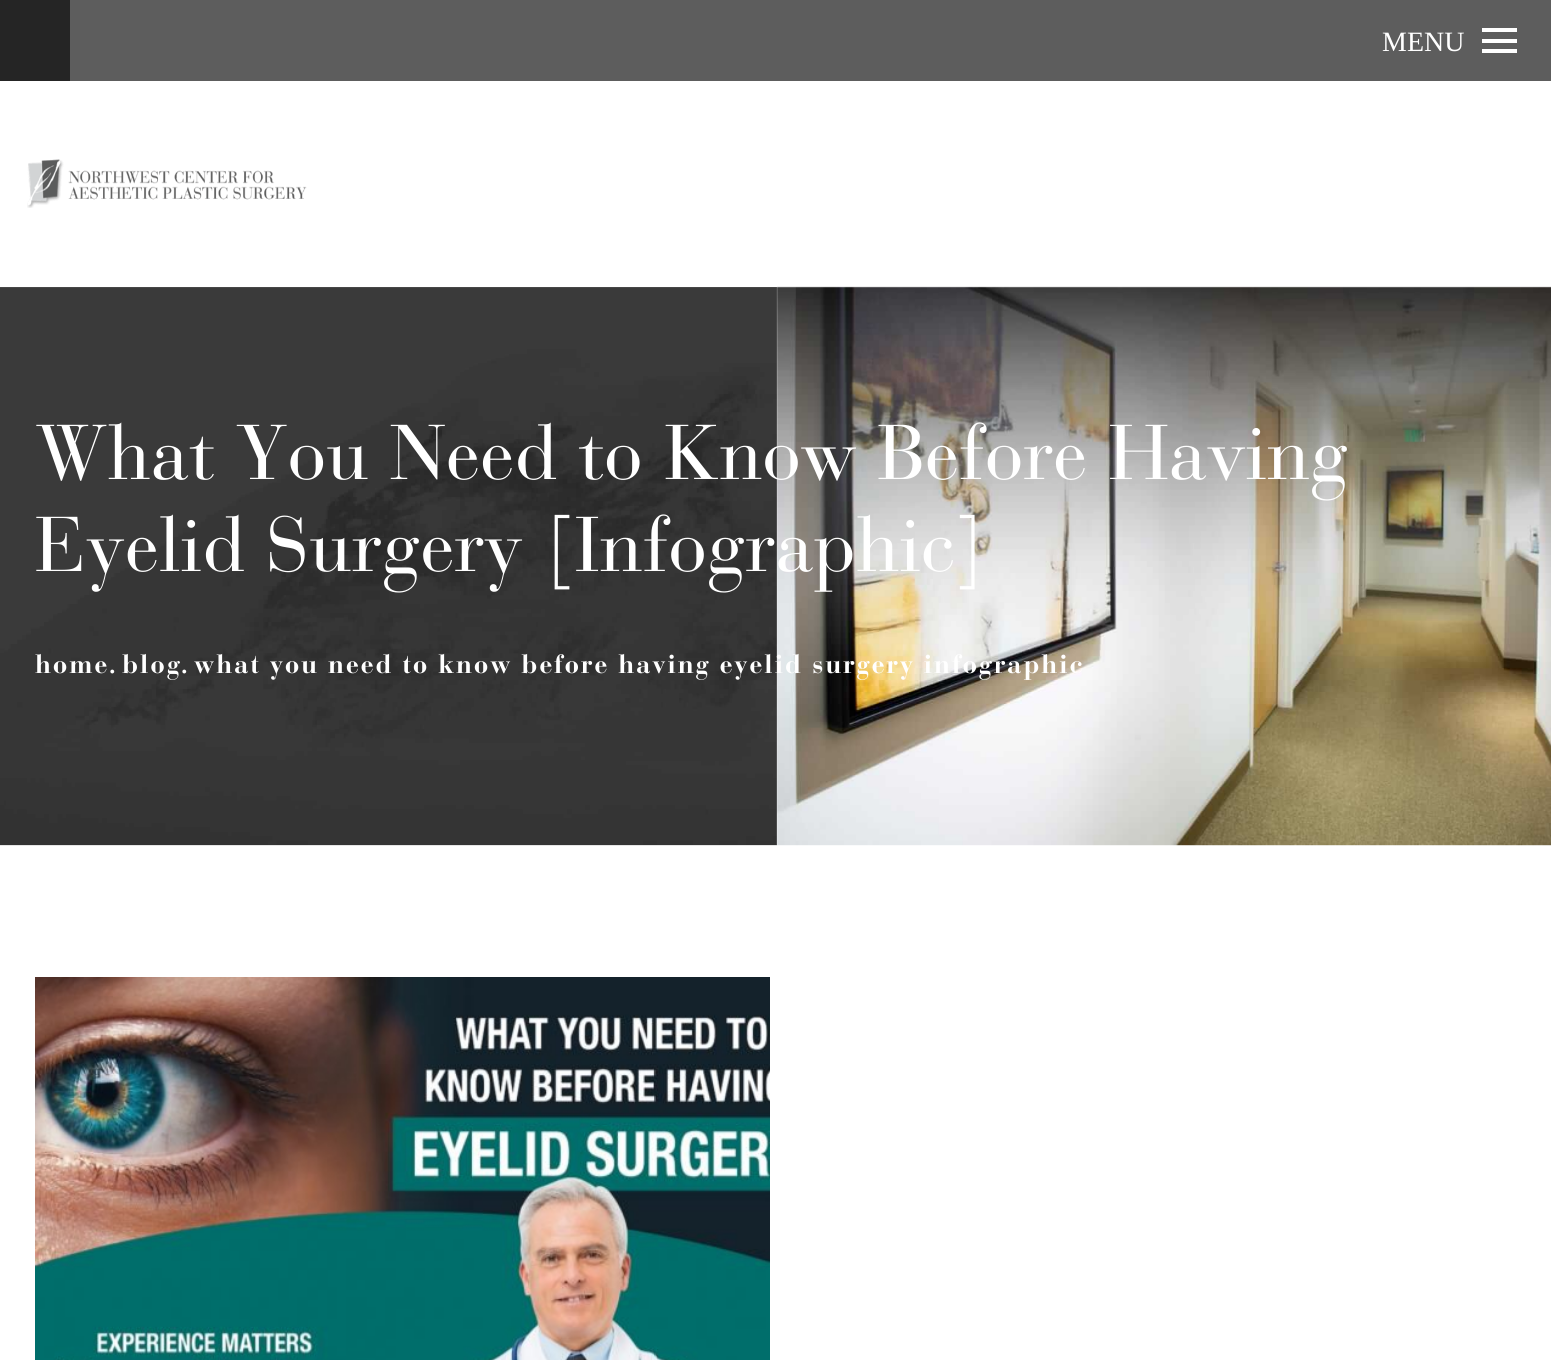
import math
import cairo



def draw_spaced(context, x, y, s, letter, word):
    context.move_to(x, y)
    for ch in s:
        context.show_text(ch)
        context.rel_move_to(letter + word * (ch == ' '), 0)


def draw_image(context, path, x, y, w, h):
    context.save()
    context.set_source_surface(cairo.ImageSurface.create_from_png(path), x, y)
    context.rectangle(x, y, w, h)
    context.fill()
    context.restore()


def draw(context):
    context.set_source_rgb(1, 1, 1)
    context.paint()
    context.set_source_rgb(93 / 255, 93 / 255, 93 / 255)
    context.rectangle(70, 0, 1481, 81)
    context.fill()
    context.set_source_rgb(37 / 255, 37 / 255, 37 / 255)
    context.rectangle(0, 0, 70, 81)
    context.fill()
    context.set_source_rgb(1, 1, 1)
    context.rectangle(1482, 39, 35, 4)
    context.fill()
    context.rectangle(1482, 28, 35, 4)
    context.fill()
    context.rectangle(1482, 49, 35, 4)
    context.fill()
    draw_image(context, "images/1.png", 27, 159, 280, 49)
    draw_image(context, "images/2.png", 0, 287, 777, 559)
    draw_image(context, "images/3.png", 776, 286, 775, 560)
    draw_image(context, "images/4.png", 35, 977, 735, 383)
    context.select_font_face("Liberation Serif")
    context.set_font_size(28)
    context.move_to(1382, 51)
    context.show_text("MENU")
    context.select_font_face("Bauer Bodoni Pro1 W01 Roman")
    context.set_font_size(77)
    context.move_to(35, 479)
    context.show_text("What You Need to Know Before Having")
    context.move_to(35, 571)
    context.show_text("Eyelid Surgery [Infographic]")
    context.select_font_face("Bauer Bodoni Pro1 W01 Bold", cairo.FontSlant.NORMAL, cairo.FontWeight.BOLD)
    context.set_font_size(26.25)
    draw_spaced(context, 35, 673, "home", 1.75, 0)
    context.select_font_face("Bauer Bodoni Pro1 W01 Roman")
    context.set_font_size(38)
    draw_spaced(context, 107, 673, ".", 1.75, 0)
    context.select_font_face("Bauer Bodoni Pro1 W01 Bold", cairo.FontSlant.NORMAL, cairo.FontWeight.BOLD)
    context.set_font_size(26.25)
    draw_spaced(context, 122, 673, "blog", 1.75, 0)
    context.select_font_face("Bauer Bodoni Pro1 W01 Roman")
    context.set_font_size(38)
    draw_spaced(context, 179, 673, ".", 1.75, 0)
    context.select_font_face("Bauer Bodoni Pro1 W01 Bold", cairo.FontSlant.NORMAL, cairo.FontWeight.BOLD)
    context.set_font_size(26.25)
    draw_spaced(context, 194, 673, "what you need to know before having eyelid surgery infographic", 1.75, 0)


surface = cairo.ImageSurface(cairo.Format.RGB24, 1551, 1360)
context = cairo.Context(surface)
options = cairo.FontOptions()
options.set_hint_metrics(cairo.HintMetrics.OFF)
options.set_hint_style(cairo.HintStyle.NONE)
context.set_font_options(options)
context.set_miter_limit(4)
draw(context)
surface.write_to_png("out.png")
